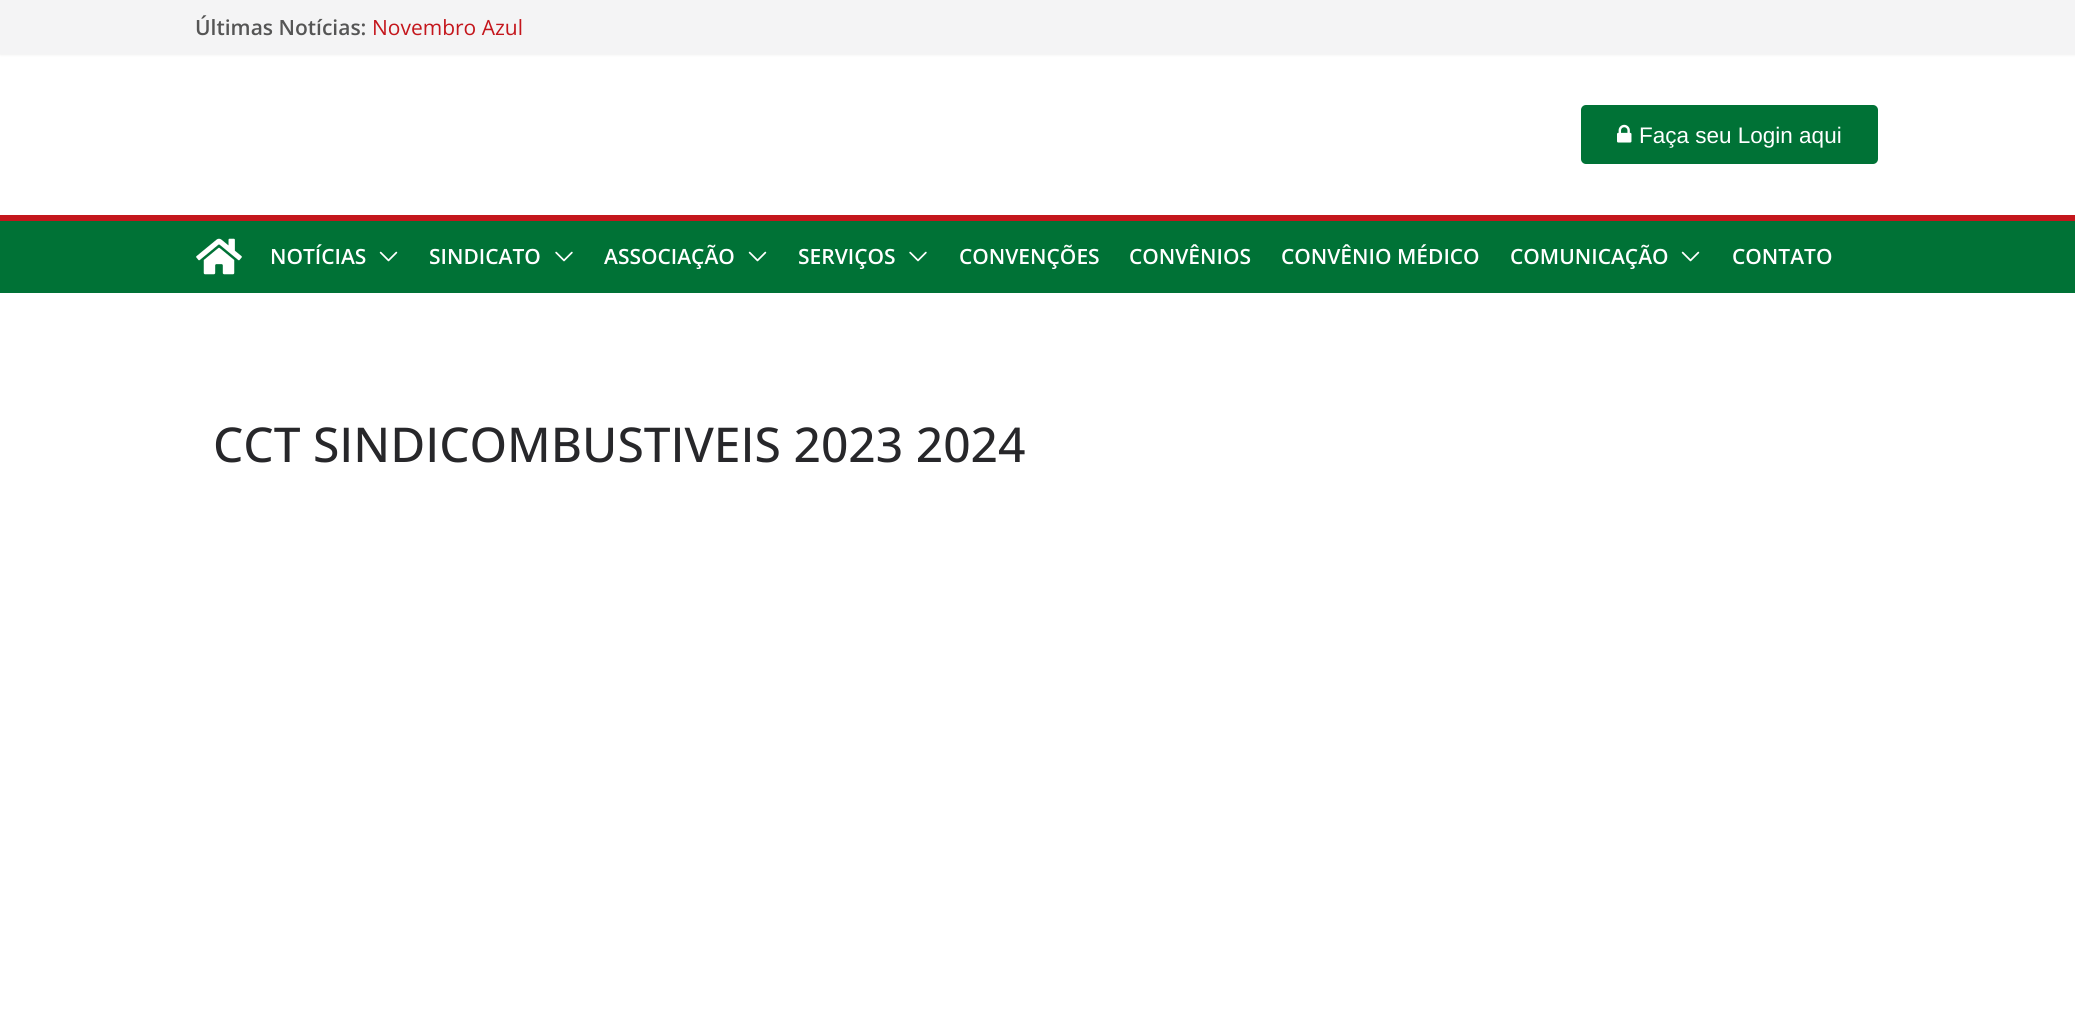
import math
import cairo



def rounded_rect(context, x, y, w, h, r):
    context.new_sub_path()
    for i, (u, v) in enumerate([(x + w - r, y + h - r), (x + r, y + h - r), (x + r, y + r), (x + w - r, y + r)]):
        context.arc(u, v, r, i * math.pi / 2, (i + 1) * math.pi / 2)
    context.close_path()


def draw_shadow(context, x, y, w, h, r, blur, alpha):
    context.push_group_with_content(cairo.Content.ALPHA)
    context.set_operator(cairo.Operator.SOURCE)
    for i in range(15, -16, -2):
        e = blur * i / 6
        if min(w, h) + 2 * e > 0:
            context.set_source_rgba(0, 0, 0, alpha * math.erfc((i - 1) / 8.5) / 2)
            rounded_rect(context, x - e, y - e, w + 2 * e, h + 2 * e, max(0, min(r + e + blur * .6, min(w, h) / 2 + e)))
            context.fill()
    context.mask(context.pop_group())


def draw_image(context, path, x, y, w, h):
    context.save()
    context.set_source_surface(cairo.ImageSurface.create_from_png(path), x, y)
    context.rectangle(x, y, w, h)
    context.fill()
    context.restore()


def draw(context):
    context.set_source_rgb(1, 1, 1)
    context.paint()
    context.set_source_rgb(0, 0, 0)
    draw_shadow(context, 0, 0, 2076, 54, 0, 1.5, 0.1)
    context.set_source_rgb(244 / 255, 244 / 255, 245 / 255)
    context.rectangle(0, 0, 2075, 54)
    context.fill()
    context.set_source_rgb(0, 114 / 255, 54 / 255)
    rounded_rect(context, 1581, 105, 297, 59, 5)
    context.fill()
    draw_image(context, "images/1.png", 1617, 124, 15, 19)
    context.rectangle(0, 221, 2075, 72)
    context.fill()
    context.set_source_rgb(196 / 255, 22 / 255, 28 / 255)
    context.rectangle(0, 215, 2075, 6)
    context.fill()
    draw_image(context, "images/2.png", 196, 238, 46, 37)
    draw_image(context, "images/3.png", 379, 251, 19, 11)
    draw_image(context, "images/4.png", 555, 251, 18, 11)
    draw_image(context, "images/3.png", 748, 251, 19, 11)
    draw_image(context, "images/4.png", 909, 251, 18, 11)
    draw_image(context, "images/3.png", 1681, 251, 19, 11)
    context.select_font_face("Open Sans SemiBold")
    context.set_font_size(21)
    context.set_source_rgb(85 / 255, 85 / 255, 85 / 255)
    context.move_to(195, 35)
    context.show_text("Últimas Notícias:")
    context.select_font_face("Open Sans")
    context.set_source_rgb(196 / 255, 22 / 255, 28 / 255)
    context.move_to(372, 35)
    context.show_text("Novembro Azul")
    context.select_font_face("Liberation Sans")
    context.set_font_size(22.5)
    context.set_source_rgb(1, 1, 1)
    context.move_to(1639, 143)
    context.show_text("Faça seu Login aqui")
    context.select_font_face("Open Sans SemiBold")
    context.set_font_size(21)
    context.move_to(270, 264)
    context.show_text("NOTÍCIAS")
    context.move_to(429, 264)
    context.show_text("SINDICATO")
    context.move_to(604, 264)
    context.show_text("ASSOCIAÇÃO")
    context.move_to(798, 264)
    context.show_text("SERVIÇOS")
    context.move_to(959, 264)
    context.show_text("CONVENÇÕES")
    context.move_to(1129, 264)
    context.show_text("CONVÊNIOS")
    context.move_to(1281, 264)
    context.show_text("CONVÊNIO MÉDICO")
    context.move_to(1510, 264)
    context.show_text("COMUNICAÇÃO")
    context.move_to(1732, 264)
    context.show_text("CONTATO")
    context.select_font_face("Open Sans Medium")
    context.set_font_size(48)
    context.set_source_rgb(39 / 255, 39 / 255, 42 / 255)
    context.move_to(213, 462)
    context.show_text("CCT SINDICOMBUSTIVEIS 2023 2024")


surface = cairo.ImageSurface(cairo.Format.RGB24, 2075, 1022)
context = cairo.Context(surface)
options = cairo.FontOptions()
options.set_hint_metrics(cairo.HintMetrics.OFF)
options.set_hint_style(cairo.HintStyle.NONE)
context.set_font_options(options)
context.set_miter_limit(4)
draw(context)
surface.write_to_png("out.png")
